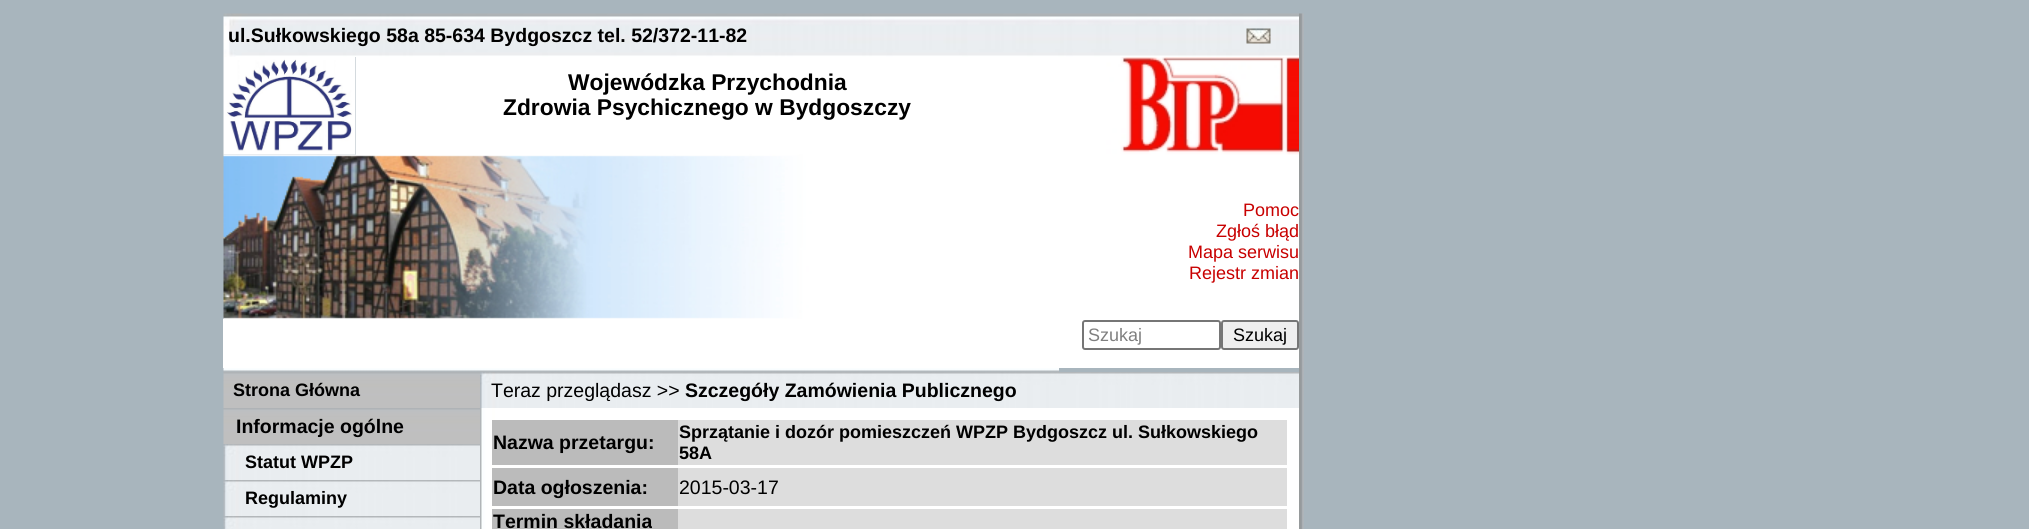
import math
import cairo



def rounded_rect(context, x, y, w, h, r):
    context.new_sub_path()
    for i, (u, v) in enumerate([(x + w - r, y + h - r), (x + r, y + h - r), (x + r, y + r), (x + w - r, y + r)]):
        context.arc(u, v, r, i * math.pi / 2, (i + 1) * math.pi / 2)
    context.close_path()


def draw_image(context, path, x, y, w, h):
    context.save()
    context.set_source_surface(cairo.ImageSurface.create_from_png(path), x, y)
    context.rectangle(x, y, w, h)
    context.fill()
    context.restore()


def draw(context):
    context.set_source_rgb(168 / 255, 181 / 255, 189 / 255)
    context.paint()
    draw_image(context, "images/1.png", 223, 13, 1076, 44)
    draw_image(context, "images/2.png", 1246, 28, 25, 16)
    draw_image(context, "images/3.png", 1299, 13, 5, 516)
    draw_image(context, "images/4.png", 223, 57, 133, 98)
    context.set_source_rgb(1, 1, 1)
    context.rectangle(356, 57, 703, 98)
    context.fill()
    context.rectangle(1059, 154, 240, 214)
    context.fill()
    draw_image(context, "images/5.png", 1059, 57, 240, 98)
    draw_image(context, "images/6.png", 223, 154, 836, 165)
    context.rectangle(223, 319, 836, 49)
    context.fill()
    rounded_rect(context, 1083, 321, 137, 28, 2)
    context.set_source_rgb(118 / 255, 118 / 255, 118 / 255)
    context.stroke()
    context.set_source_rgb(239 / 255, 239 / 255, 239 / 255)
    rounded_rect(context, 1222, 321, 76, 28, 2)
    context.fill_preserve()
    context.set_source_rgb(118 / 255, 118 / 255, 118 / 255)
    context.stroke()
    draw_image(context, "images/7.png", 223, 368, 836, 4)
    draw_image(context, "images/8.png", 223, 372, 257, 36)
    draw_image(context, "images/9.png", 480, 372, 819, 36)
    draw_image(context, "images/8.png", 223, 408, 257, 36)
    draw_image(context, "images/10.png", 223, 444, 257, 36)
    draw_image(context, "images/10.png", 223, 480, 257, 36)
    draw_image(context, "images/11.png", 223, 516, 257, 13)
    draw_image(context, "images/12.png", 480, 408, 819, 121)
    context.set_source_rgb(187 / 255, 187 / 255, 187 / 255)
    context.rectangle(492, 420, 186, 45)
    context.fill()
    context.set_source_rgb(221 / 255, 221 / 255, 221 / 255)
    context.rectangle(678, 420, 609, 45)
    context.fill()
    context.set_source_rgb(187 / 255, 187 / 255, 187 / 255)
    context.rectangle(492, 468, 186, 38)
    context.fill()
    context.set_source_rgb(221 / 255, 221 / 255, 221 / 255)
    context.rectangle(678, 468, 609, 38)
    context.fill()
    context.set_source_rgb(187 / 255, 187 / 255, 187 / 255)
    context.rectangle(492, 509, 186, 20)
    context.fill()
    context.set_source_rgb(221 / 255, 221 / 255, 221 / 255)
    context.rectangle(678, 509, 609, 20)
    context.fill()
    context.select_font_face("Liberation Sans", cairo.FontSlant.NORMAL, cairo.FontWeight.BOLD)
    context.set_font_size(19.5)
    context.set_source_rgb(0, 0, 0)
    context.move_to(228, 42)
    context.show_text("ul.Sułkowskiego 58a 85-634 Bydgoszcz tel. 52/372-11-82")
    context.set_font_size(22.8)
    context.move_to(568, 90)
    context.show_text("Wojewódzka Przychodnia")
    context.move_to(503, 115)
    context.show_text("Zdrowia Psychicznego w Bydgoszczy")
    context.select_font_face("Liberation Sans")
    context.set_font_size(18)
    context.set_source_rgb(200 / 255, 0, 0)
    context.move_to(1243, 216)
    context.show_text("Pomoc")
    context.move_to(1216, 237)
    context.show_text("Zgłoś błąd")
    context.move_to(1188, 258)
    context.show_text("Mapa serwisu")
    context.move_to(1189, 279)
    context.show_text("Rejestr zmian")
    context.set_source_rgb(128 / 255, 128 / 255, 128 / 255)
    context.move_to(1088, 341)
    context.show_text("Szukaj")
    context.set_source_rgb(0, 0, 0)
    context.move_to(1233, 341)
    context.show_text("Szukaj")
    context.select_font_face("Liberation Sans", cairo.FontSlant.NORMAL, cairo.FontWeight.BOLD)
    context.move_to(233, 396)
    context.show_text("Strona Główna")
    context.select_font_face("Liberation Sans")
    context.set_font_size(19.5)
    context.move_to(491, 397)
    context.show_text("Teraz przeglądasz >>")
    context.select_font_face("Liberation Sans", cairo.FontSlant.NORMAL, cairo.FontWeight.BOLD)
    context.move_to(685, 397)
    context.show_text("Szczegóły Zamówienia Publicznego")
    context.move_to(236, 433)
    context.show_text("Informacje ogólne")
    context.set_font_size(18)
    context.move_to(245, 468)
    context.show_text("Statut WPZP")
    context.move_to(245, 504)
    context.show_text("Regulaminy")
    context.set_font_size(19.5)
    context.move_to(493, 449)
    context.show_text("Nazwa przetargu:")
    context.set_font_size(18)
    context.move_to(679, 438)
    context.show_text("Sprzątanie i dozór pomieszczeń WPZP Bydgoszcz ul. Sułkowskiego")
    context.move_to(679, 459)
    context.show_text("58A")
    context.set_font_size(19.5)
    context.move_to(493, 494)
    context.show_text("Data ogłoszenia:")
    context.select_font_face("Liberation Sans")
    context.move_to(679, 494)
    context.show_text("2015-03-17")
    context.select_font_face("Liberation Sans", cairo.FontSlant.NORMAL, cairo.FontWeight.BOLD)
    context.move_to(493, 528)
    context.show_text("Termin składania")


surface = cairo.ImageSurface(cairo.Format.RGB24, 2029, 529)
context = cairo.Context(surface)
options = cairo.FontOptions()
options.set_hint_metrics(cairo.HintMetrics.OFF)
options.set_hint_style(cairo.HintStyle.NONE)
context.set_font_options(options)
context.set_miter_limit(4)
draw(context)
surface.write_to_png("out.png")
